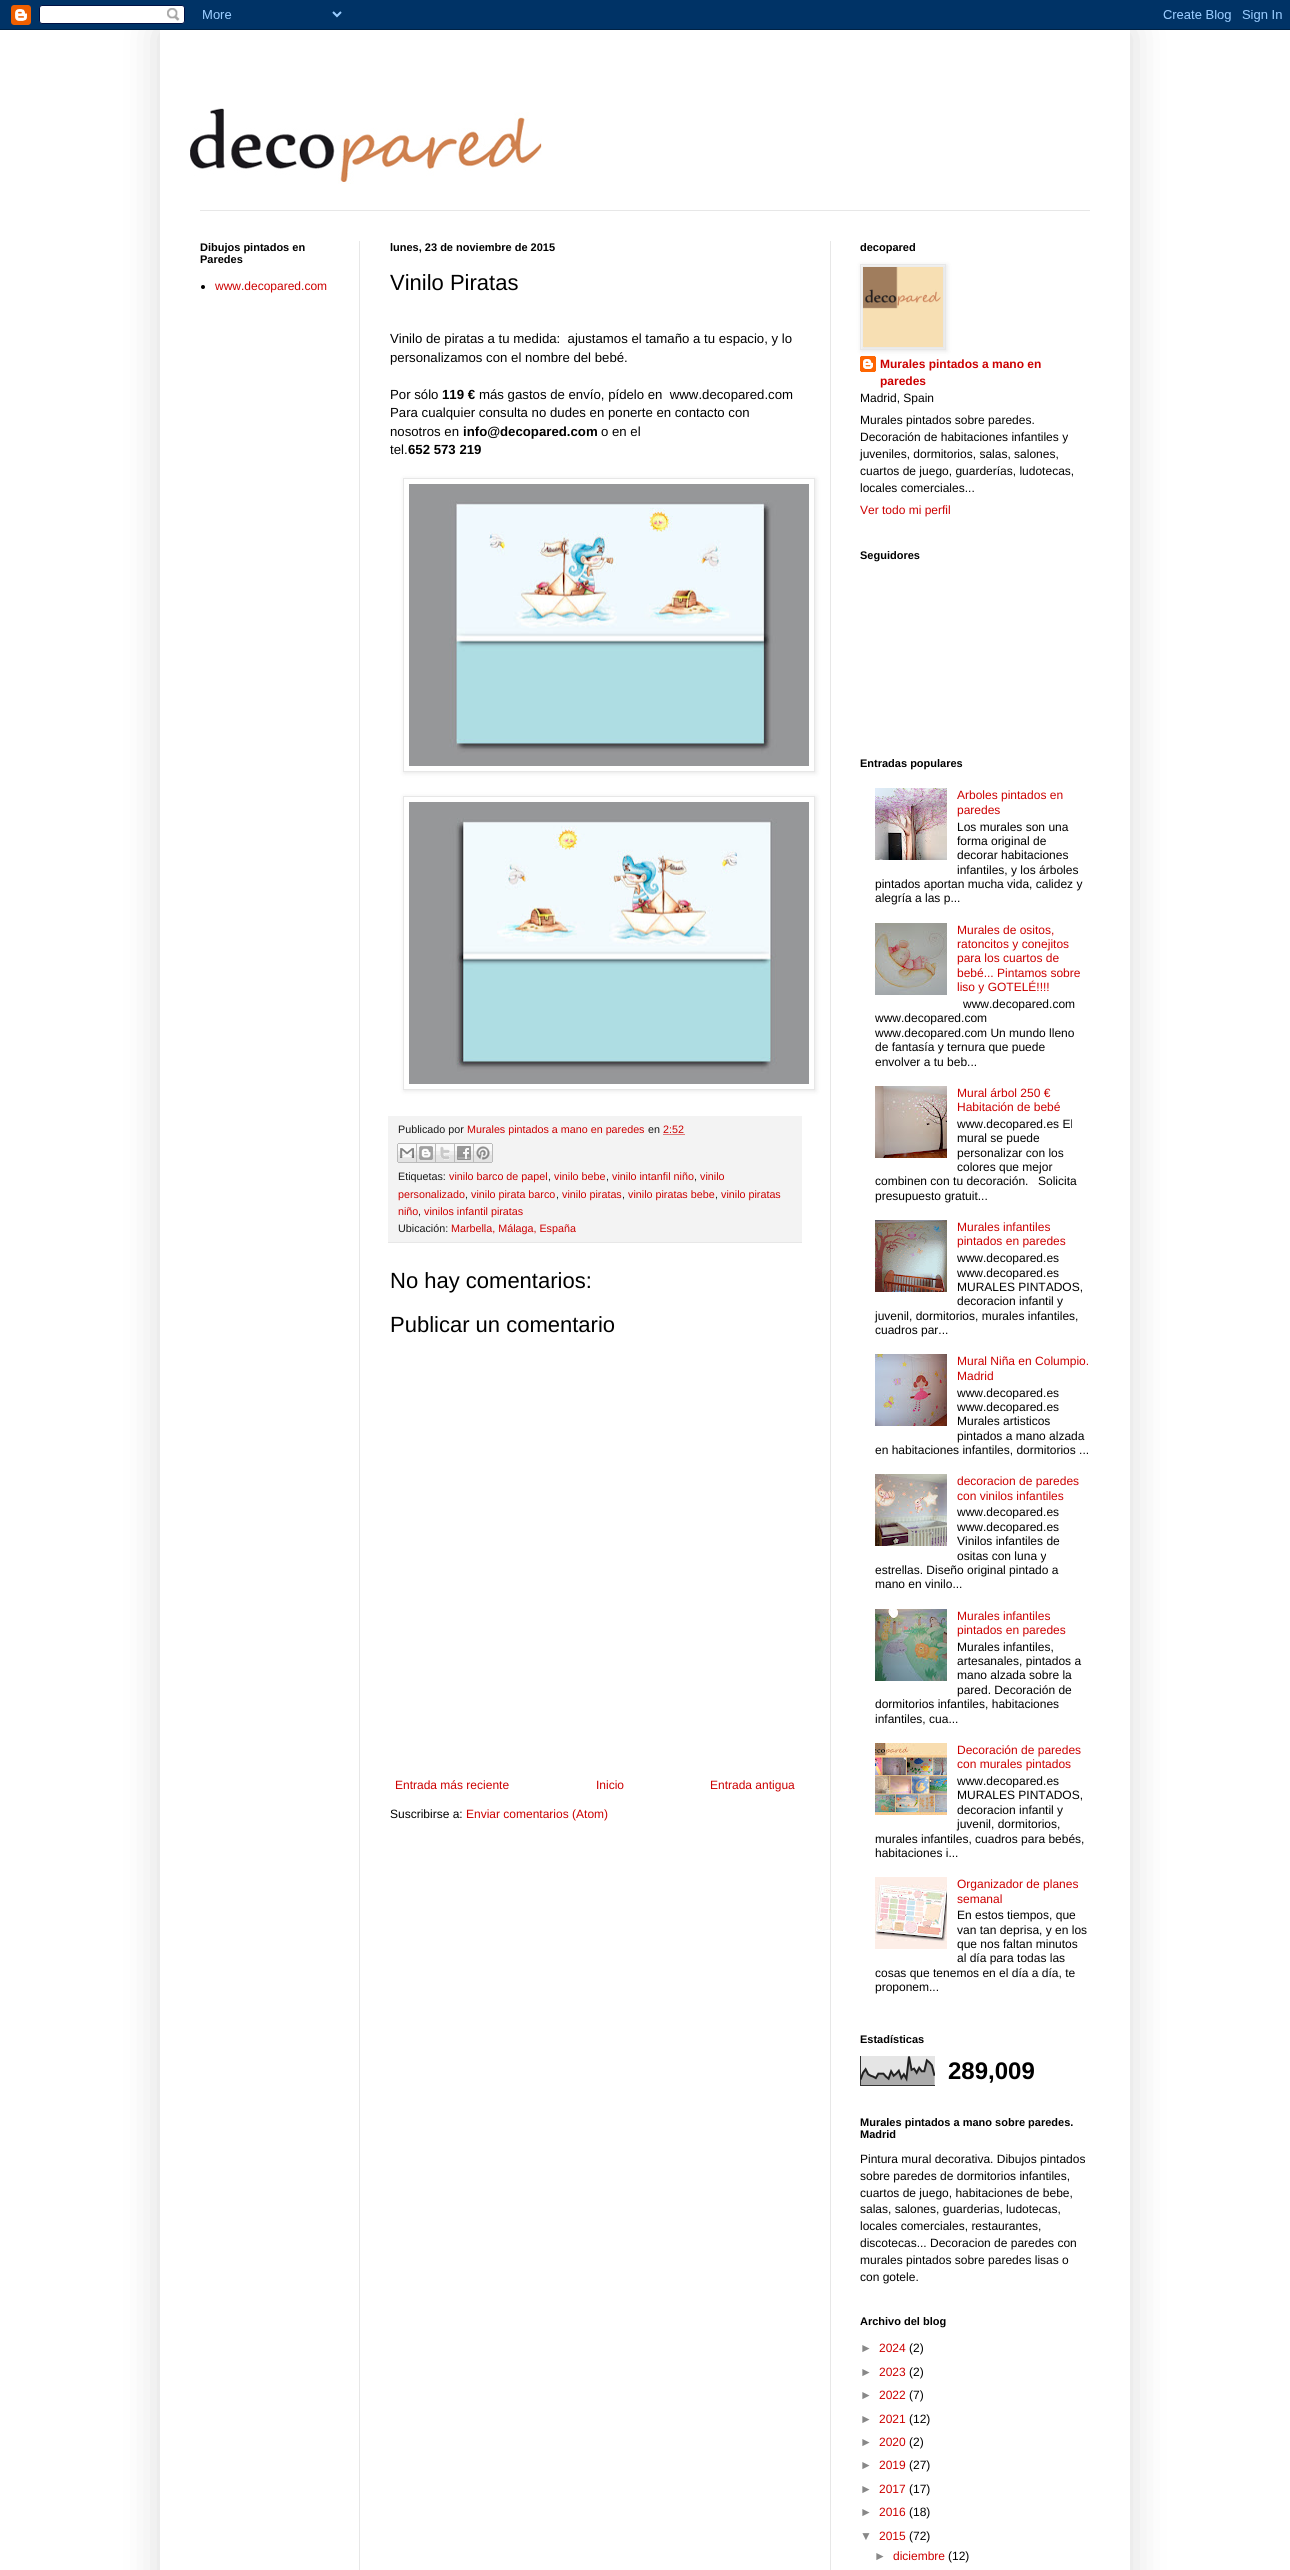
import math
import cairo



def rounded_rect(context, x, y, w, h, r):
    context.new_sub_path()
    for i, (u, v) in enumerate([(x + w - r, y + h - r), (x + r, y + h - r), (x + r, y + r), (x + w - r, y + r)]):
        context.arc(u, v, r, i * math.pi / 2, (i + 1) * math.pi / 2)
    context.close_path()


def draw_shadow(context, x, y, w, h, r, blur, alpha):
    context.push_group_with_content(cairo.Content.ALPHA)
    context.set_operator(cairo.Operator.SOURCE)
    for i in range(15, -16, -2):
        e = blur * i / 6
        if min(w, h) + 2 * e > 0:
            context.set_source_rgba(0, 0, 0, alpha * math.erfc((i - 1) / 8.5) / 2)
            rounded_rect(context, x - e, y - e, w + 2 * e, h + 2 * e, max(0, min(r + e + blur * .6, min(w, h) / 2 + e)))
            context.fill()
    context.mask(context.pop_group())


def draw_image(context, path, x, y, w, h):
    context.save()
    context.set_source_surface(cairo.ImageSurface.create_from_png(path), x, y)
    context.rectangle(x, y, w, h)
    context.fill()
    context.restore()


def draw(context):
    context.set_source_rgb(1, 1, 1)
    context.paint()
    context.save()
    context.set_fill_rule(cairo.FillRule.EVEN_ODD)
    context.new_path()
    context.move_to(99, 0)
    context.line_to(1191, 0)
    context.line_to(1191, 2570)
    context.line_to(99, 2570)
    context.close_path()
    context.move_to(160, 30)
    context.line_to(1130, 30)
    context.line_to(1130, 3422)
    context.line_to(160, 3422)
    context.close_path()
    context.clip()
    context.set_source_rgb(0, 0, 0)
    draw_shadow(context, 160, 30, 970, 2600, 0, 20, 0.15)
    context.restore()
    draw_image(context, "images/1.png", 0, 0, 1290, 30)
    draw_image(context, "images/2.png", 190, 108, 352, 76)
    context.set_source_rgb(231 / 255, 231 / 255, 231 / 255)
    context.rectangle(200, 210, 890, 1)
    context.fill()
    context.rectangle(359, 241, 1, 2329)
    context.fill()
    context.rectangle(830, 241, 1, 2329)
    context.fill()
    context.set_source_rgb(0, 0, 0)
    context.arc(203, 287, 2, 0, 2 * math.pi)
    context.fill()
    context.save()
    context.set_fill_rule(cairo.FillRule.EVEN_ODD)
    context.new_path()
    context.move_to(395, 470)
    context.line_to(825, 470)
    context.line_to(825, 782)
    context.line_to(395, 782)
    context.close_path()
    context.move_to(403, 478)
    context.line_to(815, 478)
    context.line_to(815, 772)
    context.line_to(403, 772)
    context.close_path()
    context.clip()
    context.set_source_rgb(0, 0, 0)
    draw_shadow(context, 404, 479, 412, 294, 0, 2.5, 0.1)
    context.restore()
    context.rectangle(403.5, 478.5, 411, 293)
    context.set_source_rgb(231 / 255, 231 / 255, 231 / 255)
    context.set_line_width(1)
    context.stroke()
    draw_image(context, "images/3.png", 409, 484, 400, 282)
    context.save()
    context.set_fill_rule(cairo.FillRule.EVEN_ODD)
    context.new_path()
    context.move_to(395, 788)
    context.line_to(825, 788)
    context.line_to(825, 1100)
    context.line_to(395, 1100)
    context.close_path()
    context.move_to(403, 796)
    context.line_to(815, 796)
    context.line_to(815, 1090)
    context.line_to(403, 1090)
    context.close_path()
    context.clip()
    context.set_source_rgb(0, 0, 0)
    draw_shadow(context, 404, 797, 412, 294, 0, 2.5, 0.1)
    context.restore()
    context.rectangle(403.5, 796.5, 411, 293)
    context.stroke()
    draw_image(context, "images/4.png", 409, 802, 400, 282)
    context.set_source_rgb(243 / 255, 243 / 255, 243 / 255)
    context.rectangle(388, 1116, 414, 126)
    context.fill()
    context.set_source_rgb(231 / 255, 231 / 255, 231 / 255)
    context.rectangle(388, 1242, 414, 1)
    context.fill()
    context.new_path()
    context.move_to(663.5, 1134.5)
    context.line_to(684.5, 1134.5)
    context.set_source_rgb(204 / 255, 0, 0)
    context.set_dash([1, 1])
    context.stroke()
    draw_image(context, "images/5.png", 397, 1143, 20, 20)
    draw_image(context, "images/6.png", 417, 1143, 19, 20)
    draw_image(context, "images/7.png", 436, 1143, 19, 20)
    draw_image(context, "images/8.png", 455, 1143, 19, 20)
    draw_image(context, "images/9.png", 474, 1143, 19, 20)
    draw_image(context, "images/11.png", 860, 356, 16, 16)
    context.set_source_rgb(0, 0, 0)
    draw_shadow(context, 861, 265, 86, 86, 0, 2.5, 0.1)
    context.rectangle(860.5, 264.5, 85, 85)
    context.set_source_rgb(231 / 255, 231 / 255, 231 / 255)
    context.set_dash([])
    context.stroke()
    draw_image(context, "images/10.png", 863, 267, 80, 80)
    draw_image(context, "images/12.png", 875, 788, 72, 72)
    draw_image(context, "images/13.png", 875, 923, 72, 72)
    draw_image(context, "images/14.png", 875, 1086, 72, 72)
    draw_image(context, "images/15.png", 875, 1220, 72, 72)
    draw_image(context, "images/16.png", 875, 1354, 72, 72)
    draw_image(context, "images/17.png", 875, 1474, 72, 72)
    draw_image(context, "images/18.png", 875, 1609, 72, 72)
    draw_image(context, "images/19.png", 875, 1743, 72, 72)
    draw_image(context, "images/20.png", 875, 1877, 72, 72)
    draw_image(context, "images/21.png", 860, 2056, 75, 30)
    context.select_font_face("Liberation Sans", cairo.FontSlant.NORMAL, cairo.FontWeight.BOLD)
    context.set_font_size(11)
    context.set_source_rgb(0, 0, 0)
    context.move_to(200, 251)
    context.show_text("Dibujos pintados en")
    context.move_to(200, 263)
    context.show_text("Paredes")
    context.select_font_face("Liberation Sans")
    context.set_font_size(12)
    context.set_source_rgb(204 / 255, 0, 0)
    context.move_to(215, 290)
    context.show_text("www.decopared.com")
    context.select_font_face("Liberation Sans", cairo.FontSlant.NORMAL, cairo.FontWeight.BOLD)
    context.set_font_size(11)
    context.set_source_rgb(0, 0, 0)
    context.move_to(390, 251)
    context.show_text("lunes, 23 de noviembre de 2015")
    context.select_font_face("Liberation Sans")
    context.set_font_size(22)
    context.move_to(390, 290)
    context.show_text("Vinilo Piratas")
    context.set_font_size(13.2)
    context.move_to(390, 343)
    context.show_text("Vinilo de piratas a tu medida:  ajustamos el tamaño a tu espacio, y lo")
    context.move_to(390, 362)
    context.show_text("personalizamos con el nombre del bebé.")
    context.move_to(390, 399)
    context.show_text("Por sólo")
    context.select_font_face("Liberation Sans", cairo.FontSlant.NORMAL, cairo.FontWeight.BOLD)
    context.move_to(442, 399)
    context.show_text("119 €")
    context.select_font_face("Liberation Sans")
    context.move_to(479, 399)
    context.show_text("más gastos de envío, pídelo en  www.decopared.com")
    context.move_to(390, 417)
    context.show_text("Para cualquier consulta no dudes en ponerte en contacto con")
    context.move_to(390, 436)
    context.show_text("nosotros en")
    context.select_font_face("Liberation Sans", cairo.FontSlant.NORMAL, cairo.FontWeight.BOLD)
    context.move_to(463, 436)
    context.show_text("info@decopared.com")
    context.select_font_face("Liberation Sans")
    context.move_to(601, 436)
    context.show_text("o en el")
    context.move_to(390, 454)
    context.show_text("tel.")
    context.select_font_face("Liberation Sans", cairo.FontSlant.NORMAL, cairo.FontWeight.BOLD)
    context.move_to(408, 454)
    context.show_text("652 573 219")
    context.select_font_face("Liberation Sans")
    context.set_font_size(10.75)
    context.set_source_rgb(24 / 255, 24 / 255, 24 / 255)
    context.move_to(398, 1133)
    context.show_text("Publicado por")
    context.set_source_rgb(204 / 255, 0, 0)
    context.move_to(467, 1133)
    context.show_text("Murales pintados a mano en paredes")
    context.set_source_rgb(24 / 255, 24 / 255, 24 / 255)
    context.move_to(648, 1133)
    context.show_text("en")
    context.set_source_rgb(204 / 255, 0, 0)
    context.move_to(663, 1133)
    context.show_text("2:52")
    context.set_source_rgb(24 / 255, 24 / 255, 24 / 255)
    context.move_to(398, 1180)
    context.show_text("Etiquetas:")
    context.set_source_rgb(204 / 255, 0, 0)
    context.move_to(449, 1180)
    context.show_text("vinilo barco de papel")
    context.set_source_rgb(24 / 255, 24 / 255, 24 / 255)
    context.move_to(548, 1180)
    context.show_text(",")
    context.set_source_rgb(204 / 255, 0, 0)
    context.move_to(554, 1180)
    context.show_text("vinilo bebe")
    context.set_source_rgb(24 / 255, 24 / 255, 24 / 255)
    context.move_to(606, 1180)
    context.show_text(",")
    context.set_source_rgb(204 / 255, 0, 0)
    context.move_to(612, 1180)
    context.show_text("vinilo intanfil niño")
    context.set_source_rgb(24 / 255, 24 / 255, 24 / 255)
    context.move_to(694, 1180)
    context.show_text(",")
    context.set_source_rgb(204 / 255, 0, 0)
    context.move_to(700, 1180)
    context.show_text("vinilo")
    context.move_to(398, 1198)
    context.show_text("personalizado")
    context.set_source_rgb(24 / 255, 24 / 255, 24 / 255)
    context.move_to(465, 1198)
    context.show_text(",")
    context.set_source_rgb(204 / 255, 0, 0)
    context.move_to(471, 1198)
    context.show_text("vinilo pirata barco")
    context.set_source_rgb(24 / 255, 24 / 255, 24 / 255)
    context.move_to(556, 1198)
    context.show_text(",")
    context.set_source_rgb(204 / 255, 0, 0)
    context.move_to(562, 1198)
    context.show_text("vinilo piratas")
    context.set_source_rgb(24 / 255, 24 / 255, 24 / 255)
    context.move_to(622, 1198)
    context.show_text(",")
    context.set_source_rgb(204 / 255, 0, 0)
    context.move_to(628, 1198)
    context.show_text("vinilo piratas bebe")
    context.set_source_rgb(24 / 255, 24 / 255, 24 / 255)
    context.move_to(715, 1198)
    context.show_text(",")
    context.set_source_rgb(204 / 255, 0, 0)
    context.move_to(721, 1198)
    context.show_text("vinilo piratas")
    context.move_to(398, 1215)
    context.show_text("niño")
    context.set_source_rgb(24 / 255, 24 / 255, 24 / 255)
    context.move_to(418, 1215)
    context.show_text(",")
    context.set_source_rgb(204 / 255, 0, 0)
    context.move_to(424, 1215)
    context.show_text("vinilos infantil piratas")
    context.set_source_rgb(24 / 255, 24 / 255, 24 / 255)
    context.move_to(398, 1232)
    context.show_text("Ubicación:")
    context.set_source_rgb(204 / 255, 0, 0)
    context.move_to(451, 1232)
    context.show_text("Marbella, Málaga, España")
    context.set_font_size(22)
    context.set_source_rgb(0, 0, 0)
    context.move_to(390, 1288)
    context.show_text("No hay comentarios:")
    context.move_to(390, 1332)
    context.show_text("Publicar un comentario")
    context.set_font_size(12)
    context.set_source_rgb(204 / 255, 0, 0)
    context.move_to(395, 1789)
    context.show_text("Entrada más reciente")
    context.move_to(596, 1789)
    context.show_text("Inicio")
    context.move_to(710, 1789)
    context.show_text("Entrada antigua")
    context.set_source_rgb(0, 0, 0)
    context.move_to(390, 1818)
    context.show_text("Suscribirse a:")
    context.set_source_rgb(204 / 255, 0, 0)
    context.move_to(466, 1818)
    context.show_text("Enviar comentarios (Atom)")
    context.select_font_face("Liberation Sans", cairo.FontSlant.NORMAL, cairo.FontWeight.BOLD)
    context.set_font_size(11)
    context.set_source_rgb(0, 0, 0)
    context.move_to(860, 251)
    context.show_text("decopared")
    context.set_font_size(12)
    context.set_source_rgb(204 / 255, 0, 0)
    context.move_to(880, 368)
    context.show_text("Murales pintados a mano en")
    context.move_to(880, 385)
    context.show_text("paredes")
    context.select_font_face("Liberation Sans")
    context.set_source_rgb(0, 0, 0)
    context.move_to(860, 402)
    context.show_text("Madrid, Spain")
    context.move_to(860, 424)
    context.show_text("Murales pintados sobre paredes.")
    context.move_to(860, 441)
    context.show_text("Decoración de habitaciones infantiles y")
    context.move_to(860, 458)
    context.show_text("juveniles, dormitorios, salas, salones,")
    context.move_to(860, 475)
    context.show_text("cuartos de juego, guarderías, ludotecas,")
    context.move_to(860, 492)
    context.show_text("locales comerciales...")
    context.set_source_rgb(204 / 255, 0, 0)
    context.move_to(860, 514)
    context.show_text("Ver todo mi perfil")
    context.select_font_face("Liberation Sans", cairo.FontSlant.NORMAL, cairo.FontWeight.BOLD)
    context.set_font_size(11)
    context.set_source_rgb(0, 0, 0)
    context.move_to(860, 559)
    context.show_text("Seguidores")
    context.move_to(860, 767)
    context.show_text("Entradas populares")
    context.select_font_face("Liberation Sans")
    context.set_font_size(12)
    context.set_source_rgb(204 / 255, 0, 0)
    context.move_to(957, 799)
    context.show_text("Arboles pintados en")
    context.move_to(957, 814)
    context.show_text("paredes")
    context.set_source_rgb(0, 0, 0)
    context.move_to(957, 831)
    context.show_text("Los murales son una")
    context.move_to(957, 845)
    context.show_text("forma original de")
    context.move_to(957, 859)
    context.show_text("decorar habitaciones")
    context.move_to(957, 874)
    context.show_text("infantiles, y los árboles")
    context.move_to(875, 888)
    context.show_text("pintados aportan mucha vida, calidez y")
    context.move_to(875, 902)
    context.show_text("alegría a las p...")
    context.set_source_rgb(204 / 255, 0, 0)
    context.move_to(957, 934)
    context.show_text("Murales de ositos,")
    context.move_to(957, 948)
    context.show_text("ratoncitos y conejitos")
    context.move_to(957, 962)
    context.show_text("para los cuartos de")
    context.move_to(957, 977)
    context.show_text("bebé... Pintamos sobre")
    context.move_to(957, 991)
    context.show_text("liso y GOTELÉ!!!!")
    context.set_source_rgb(0, 0, 0)
    context.move_to(963, 1008)
    context.show_text("www.decopared.com")
    context.move_to(875, 1022)
    context.show_text("www.decopared.com")
    context.move_to(875, 1037)
    context.show_text("www.decopared.com Un mundo lleno")
    context.move_to(875, 1051)
    context.show_text("de fantasía y ternura que puede")
    context.move_to(875, 1066)
    context.show_text("envolver a tu beb...")
    context.set_source_rgb(204 / 255, 0, 0)
    context.move_to(957, 1097)
    context.show_text("Mural árbol 250 €")
    context.move_to(957, 1111)
    context.show_text("Habitación de bebé")
    context.set_source_rgb(0, 0, 0)
    context.move_to(957, 1128)
    context.show_text("www.decopared.es El")
    context.move_to(957, 1142)
    context.show_text("mural se puede")
    context.move_to(957, 1157)
    context.show_text("personalizar con los")
    context.move_to(957, 1171)
    context.show_text("colores que mejor")
    context.move_to(875, 1185)
    context.show_text("combinen con tu decoración.")
    context.move_to(1038, 1185)
    context.show_text("Solicita")
    context.move_to(875, 1200)
    context.show_text("presupuesto gratuit...")
    context.set_source_rgb(204 / 255, 0, 0)
    context.move_to(957, 1231)
    context.show_text("Murales infantiles")
    context.move_to(957, 1245)
    context.show_text("pintados en paredes")
    context.set_source_rgb(0, 0, 0)
    context.move_to(957, 1262)
    context.show_text("www.decopared.es")
    context.move_to(957, 1277)
    context.show_text("www.decopared.es")
    context.move_to(957, 1291)
    context.show_text("MURALES PINTADOS,")
    context.move_to(957, 1305)
    context.show_text("decoracion infantil y")
    context.move_to(875, 1320)
    context.show_text("juvenil, dormitorios, murales infantiles,")
    context.move_to(875, 1334)
    context.show_text("cuadros par...")
    context.set_source_rgb(204 / 255, 0, 0)
    context.move_to(957, 1365)
    context.show_text("Mural Niña en Columpio.")
    context.move_to(957, 1380)
    context.show_text("Madrid")
    context.set_source_rgb(0, 0, 0)
    context.move_to(957, 1397)
    context.show_text("www.decopared.es")
    context.move_to(957, 1411)
    context.show_text("www.decopared.es")
    context.move_to(957, 1425)
    context.show_text("Murales artisticos")
    context.move_to(957, 1440)
    context.show_text("pintados a mano alzada")
    context.move_to(875, 1454)
    context.show_text("en habitaciones infantiles, dormitorios ...")
    context.set_source_rgb(204 / 255, 0, 0)
    context.move_to(957, 1485)
    context.show_text("decoracion de paredes")
    context.move_to(957, 1500)
    context.show_text("con vinilos infantiles")
    context.set_source_rgb(0, 0, 0)
    context.move_to(957, 1516)
    context.show_text("www.decopared.es")
    context.move_to(957, 1531)
    context.show_text("www.decopared.es")
    context.move_to(957, 1545)
    context.show_text("Vinilos infantiles de")
    context.move_to(957, 1560)
    context.show_text("ositas con luna y")
    context.move_to(875, 1574)
    context.show_text("estrellas. Diseño original pintado a")
    context.move_to(875, 1588)
    context.show_text("mano en vinilo...")
    context.set_source_rgb(204 / 255, 0, 0)
    context.move_to(957, 1620)
    context.show_text("Murales infantiles")
    context.move_to(957, 1634)
    context.show_text("pintados en paredes")
    context.set_source_rgb(0, 0, 0)
    context.move_to(957, 1651)
    context.show_text("Murales infantiles,")
    context.move_to(957, 1665)
    context.show_text("artesanales, pintados a")
    context.move_to(957, 1679)
    context.show_text("mano alzada sobre la")
    context.move_to(957, 1694)
    context.show_text("pared. Decoración de")
    context.move_to(875, 1708)
    context.show_text("dormitorios infantiles, habitaciones")
    context.move_to(875, 1723)
    context.show_text("infantiles, cua...")
    context.set_source_rgb(204 / 255, 0, 0)
    context.move_to(957, 1754)
    context.show_text("Decoración de paredes")
    context.move_to(957, 1768)
    context.show_text("con murales pintados")
    context.set_source_rgb(0, 0, 0)
    context.move_to(957, 1785)
    context.show_text("www.decopared.es")
    context.move_to(957, 1799)
    context.show_text("MURALES PINTADOS,")
    context.move_to(957, 1814)
    context.show_text("decoracion infantil y")
    context.move_to(957, 1828)
    context.show_text("juvenil, dormitorios,")
    context.move_to(875, 1843)
    context.show_text("murales infantiles, cuadros para bebés,")
    context.move_to(875, 1857)
    context.show_text("habitaciones i...")
    context.set_source_rgb(204 / 255, 0, 0)
    context.move_to(957, 1888)
    context.show_text("Organizador de planes")
    context.move_to(957, 1903)
    context.show_text("semanal")
    context.set_source_rgb(0, 0, 0)
    context.move_to(957, 1919)
    context.show_text("En estos tiempos, que")
    context.move_to(957, 1934)
    context.show_text("van tan deprisa, y en los")
    context.move_to(957, 1948)
    context.show_text("que nos faltan minutos")
    context.move_to(957, 1962)
    context.show_text("al día para todas las")
    context.move_to(875, 1977)
    context.show_text("cosas que tenemos en el día a día, te")
    context.move_to(875, 1991)
    context.show_text("proponem...")
    context.select_font_face("Liberation Sans", cairo.FontSlant.NORMAL, cairo.FontWeight.BOLD)
    context.set_font_size(11)
    context.move_to(860, 2043)
    context.show_text("Estadísticas")
    context.set_font_size(24)
    context.move_to(948, 2079)
    context.show_text("289,009")
    context.set_font_size(11)
    context.move_to(860, 2126)
    context.show_text("Murales pintados a mano sobre paredes.")
    context.move_to(860, 2138)
    context.show_text("Madrid")
    context.select_font_face("Liberation Sans")
    context.set_font_size(12)
    context.move_to(860, 2163)
    context.show_text("Pintura mural decorativa. Dibujos pintados")
    context.move_to(860, 2180)
    context.show_text("sobre paredes de dormitorios infantiles,")
    context.move_to(860, 2197)
    context.show_text("cuartos de juego, habitaciones de bebe,")
    context.move_to(860, 2213)
    context.show_text("salas, salones, guarderias, ludotecas,")
    context.move_to(860, 2230)
    context.show_text("locales comerciales, restaurantes,")
    context.move_to(860, 2247)
    context.show_text("discotecas... Decoracion de paredes con")
    context.move_to(860, 2264)
    context.show_text("murales pintados sobre paredes lisas o")
    context.move_to(860, 2281)
    context.show_text("con gotele.")
    context.select_font_face("Liberation Sans", cairo.FontSlant.NORMAL, cairo.FontWeight.BOLD)
    context.set_font_size(11)
    context.move_to(860, 2325)
    context.show_text("Archivo del blog")
    context.select_font_face("Liberation Sans")
    context.set_font_size(12)
    context.set_source_rgb(136 / 255, 136 / 255, 136 / 255)
    context.move_to(860, 2352)
    context.show_text("►")
    context.set_source_rgb(204 / 255, 0, 0)
    context.move_to(879, 2352)
    context.show_text("2024")
    context.set_source_rgb(0, 0, 0)
    context.move_to(909, 2352)
    context.show_text("(2)")
    context.set_source_rgb(136 / 255, 136 / 255, 136 / 255)
    context.move_to(860, 2376)
    context.show_text("►")
    context.set_source_rgb(204 / 255, 0, 0)
    context.move_to(879, 2376)
    context.show_text("2023")
    context.set_source_rgb(0, 0, 0)
    context.move_to(909, 2376)
    context.show_text("(2)")
    context.set_source_rgb(136 / 255, 136 / 255, 136 / 255)
    context.move_to(860, 2399)
    context.show_text("►")
    context.set_source_rgb(204 / 255, 0, 0)
    context.move_to(879, 2399)
    context.show_text("2022")
    context.set_source_rgb(0, 0, 0)
    context.move_to(909, 2399)
    context.show_text("(7)")
    context.set_source_rgb(136 / 255, 136 / 255, 136 / 255)
    context.move_to(860, 2423)
    context.show_text("►")
    context.set_source_rgb(204 / 255, 0, 0)
    context.move_to(879, 2423)
    context.show_text("2021")
    context.set_source_rgb(0, 0, 0)
    context.move_to(909, 2423)
    context.show_text("(12)")
    context.set_source_rgb(136 / 255, 136 / 255, 136 / 255)
    context.move_to(860, 2446)
    context.show_text("►")
    context.set_source_rgb(204 / 255, 0, 0)
    context.move_to(879, 2446)
    context.show_text("2020")
    context.set_source_rgb(0, 0, 0)
    context.move_to(909, 2446)
    context.show_text("(2)")
    context.set_source_rgb(136 / 255, 136 / 255, 136 / 255)
    context.move_to(860, 2469)
    context.show_text("►")
    context.set_source_rgb(204 / 255, 0, 0)
    context.move_to(879, 2469)
    context.show_text("2019")
    context.set_source_rgb(0, 0, 0)
    context.move_to(909, 2469)
    context.show_text("(27)")
    context.set_source_rgb(136 / 255, 136 / 255, 136 / 255)
    context.move_to(860, 2493)
    context.show_text("►")
    context.set_source_rgb(204 / 255, 0, 0)
    context.move_to(879, 2493)
    context.show_text("2017")
    context.set_source_rgb(0, 0, 0)
    context.move_to(909, 2493)
    context.show_text("(17)")
    context.set_source_rgb(136 / 255, 136 / 255, 136 / 255)
    context.move_to(860, 2516)
    context.show_text("►")
    context.set_source_rgb(204 / 255, 0, 0)
    context.move_to(879, 2516)
    context.show_text("2016")
    context.set_source_rgb(0, 0, 0)
    context.move_to(909, 2516)
    context.show_text("(18)")
    context.set_source_rgb(136 / 255, 136 / 255, 136 / 255)
    context.move_to(860, 2540)
    context.show_text("▼")
    context.set_source_rgb(204 / 255, 0, 0)
    context.move_to(879, 2540)
    context.show_text("2015")
    context.set_source_rgb(0, 0, 0)
    context.move_to(909, 2540)
    context.show_text("(72)")
    context.set_source_rgb(136 / 255, 136 / 255, 136 / 255)
    context.move_to(874, 2560)
    context.show_text("►")
    context.set_source_rgb(204 / 255, 0, 0)
    context.move_to(893, 2560)
    context.show_text("diciembre")
    context.set_source_rgb(0, 0, 0)
    context.move_to(948, 2560)
    context.show_text("(12)")


surface = cairo.ImageSurface(cairo.Format.RGB24, 1290, 2570)
context = cairo.Context(surface)
options = cairo.FontOptions()
options.set_hint_metrics(cairo.HintMetrics.OFF)
options.set_hint_style(cairo.HintStyle.NONE)
context.set_font_options(options)
context.set_miter_limit(4)
draw(context)
surface.write_to_png("out.png")
